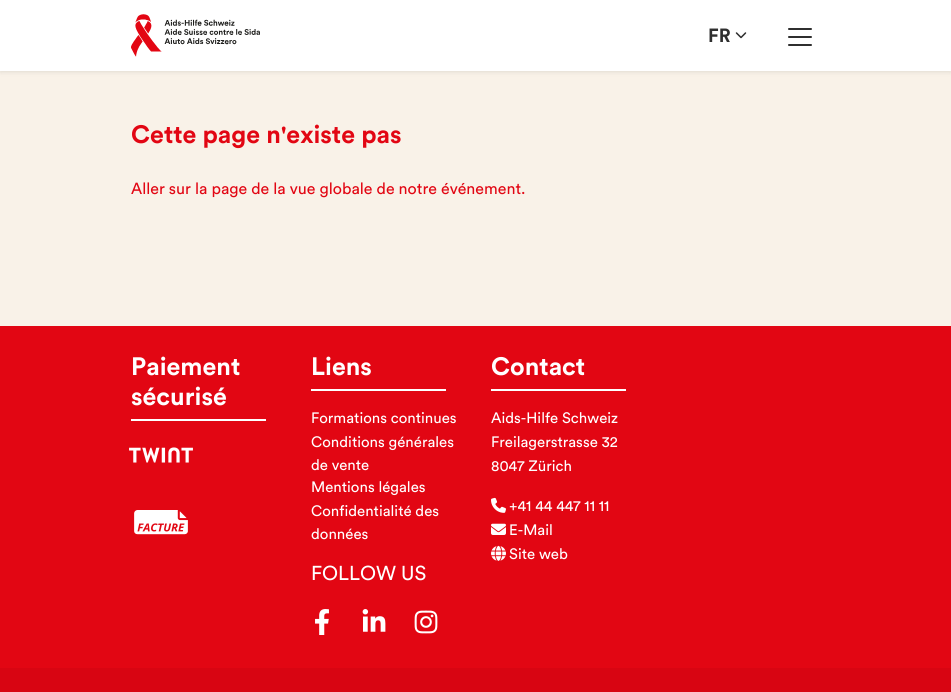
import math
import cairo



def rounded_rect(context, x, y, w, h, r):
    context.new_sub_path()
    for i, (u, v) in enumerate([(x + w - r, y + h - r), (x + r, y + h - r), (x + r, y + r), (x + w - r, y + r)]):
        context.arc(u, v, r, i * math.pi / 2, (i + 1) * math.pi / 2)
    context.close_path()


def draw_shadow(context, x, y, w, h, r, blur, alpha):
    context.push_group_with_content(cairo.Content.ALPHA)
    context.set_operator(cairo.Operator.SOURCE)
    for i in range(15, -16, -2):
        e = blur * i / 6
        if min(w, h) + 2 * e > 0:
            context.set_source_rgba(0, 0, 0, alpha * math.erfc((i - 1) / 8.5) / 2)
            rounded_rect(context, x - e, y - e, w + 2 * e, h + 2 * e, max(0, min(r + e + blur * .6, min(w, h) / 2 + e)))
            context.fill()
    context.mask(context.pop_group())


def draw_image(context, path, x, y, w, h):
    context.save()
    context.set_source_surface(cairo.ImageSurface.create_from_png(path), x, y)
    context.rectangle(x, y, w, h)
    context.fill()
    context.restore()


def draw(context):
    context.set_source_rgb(249 / 255, 242 / 255, 232 / 255)
    context.paint()
    context.set_source_rgb(0, 0, 0)
    draw_shadow(context, 0, 1, 951, 71, 0, 2.5, 0.1)
    context.set_source_rgb(1, 1, 1)
    context.rectangle(0, 0, 951, 71)
    context.fill()
    draw_image(context, "images/1.png", 131, 14, 129, 43)
    draw_image(context, "images/2.png", 735, 32, 12, 7)
    context.set_source_rgb(47 / 255, 47 / 255, 47 / 255)
    rounded_rect(context, 788, 28, 24, 2, 1)
    context.fill()
    rounded_rect(context, 788, 36, 24, 2, 1)
    context.fill()
    rounded_rect(context, 788, 44, 24, 2, 1)
    context.fill()
    context.set_source_rgb(226 / 255, 6 / 255, 19 / 255)
    context.rectangle(0, 326, 951, 342)
    context.fill()
    context.set_source_rgb(1, 1, 1)
    context.rectangle(131, 419, 135, 2)
    context.fill()
    draw_image(context, "images/3.png", 129, 447, 64, 16)
    draw_image(context, "images/4.png", 134, 510, 54, 25)
    context.rectangle(311, 389, 135, 2)
    context.fill()
    draw_image(context, "images/5.png", 315, 609, 14, 26)
    draw_image(context, "images/6.png", 362, 609, 24, 23)
    draw_image(context, "images/7.png", 414, 610, 24, 24)
    context.rectangle(491, 389, 135, 2)
    context.fill()
    draw_image(context, "images/8.png", 491, 497, 15, 16)
    draw_image(context, "images/9.png", 491, 523, 15, 12)
    draw_image(context, "images/10.png", 491, 545, 15, 16)
    context.set_source_rgb(216 / 255, 5 / 255, 18 / 255)
    context.rectangle(0, 668, 951, 24)
    context.fill()
    context.select_font_face("Circular", cairo.FontSlant.NORMAL, cairo.FontWeight.BOLD)
    context.set_font_size(19)
    context.set_source_rgb(47 / 255, 47 / 255, 47 / 255)
    context.move_to(708, 42)
    context.show_text("FR")
    context.set_font_size(25)
    context.set_source_rgb(226 / 255, 6 / 255, 19 / 255)
    context.move_to(131, 143)
    context.show_text("Cette page n'existe pas")
    context.select_font_face("Circular")
    context.set_font_size(16)
    context.move_to(131, 194)
    context.show_text("Aller sur la page de la vue globale de notre événement.")
    context.select_font_face("Circular", cairo.FontSlant.NORMAL, cairo.FontWeight.BOLD)
    context.set_font_size(25)
    context.set_source_rgb(1, 1, 1)
    context.move_to(131, 375)
    context.show_text("Paiement")
    context.move_to(131, 405)
    context.show_text("sécurisé")
    context.move_to(311, 375)
    context.show_text("Liens")
    context.select_font_face("Circular")
    context.set_font_size(15)
    context.move_to(311, 423)
    context.show_text("Formations continues")
    context.move_to(311, 447)
    context.show_text("Conditions générales")
    context.move_to(311, 470)
    context.show_text("de vente")
    context.move_to(311, 492)
    context.show_text("Mentions légales")
    context.move_to(311, 516)
    context.show_text("Confidentialité des")
    context.move_to(311, 539)
    context.show_text("données")
    context.set_font_size(20)
    context.move_to(311, 580)
    context.show_text("FOLLOW US")
    context.select_font_face("Circular", cairo.FontSlant.NORMAL, cairo.FontWeight.BOLD)
    context.set_font_size(25)
    context.move_to(491, 375)
    context.show_text("Contact")
    context.select_font_face("Circular")
    context.set_font_size(15)
    context.move_to(491, 423)
    context.show_text("Aids-Hilfe Schweiz")
    context.move_to(491, 447)
    context.show_text("Freilagerstrasse 32")
    context.move_to(491, 471)
    context.show_text("8047 Zürich")
    context.move_to(509, 511)
    context.show_text("+41 44 447 11 11")
    context.move_to(509, 535)
    context.show_text("E-Mail")
    context.move_to(509, 559)
    context.show_text("Site web")


surface = cairo.ImageSurface(cairo.Format.RGB24, 951, 692)
context = cairo.Context(surface)
options = cairo.FontOptions()
options.set_hint_metrics(cairo.HintMetrics.OFF)
options.set_hint_style(cairo.HintStyle.NONE)
context.set_font_options(options)
context.set_miter_limit(4)
draw(context)
surface.write_to_png("out.png")
